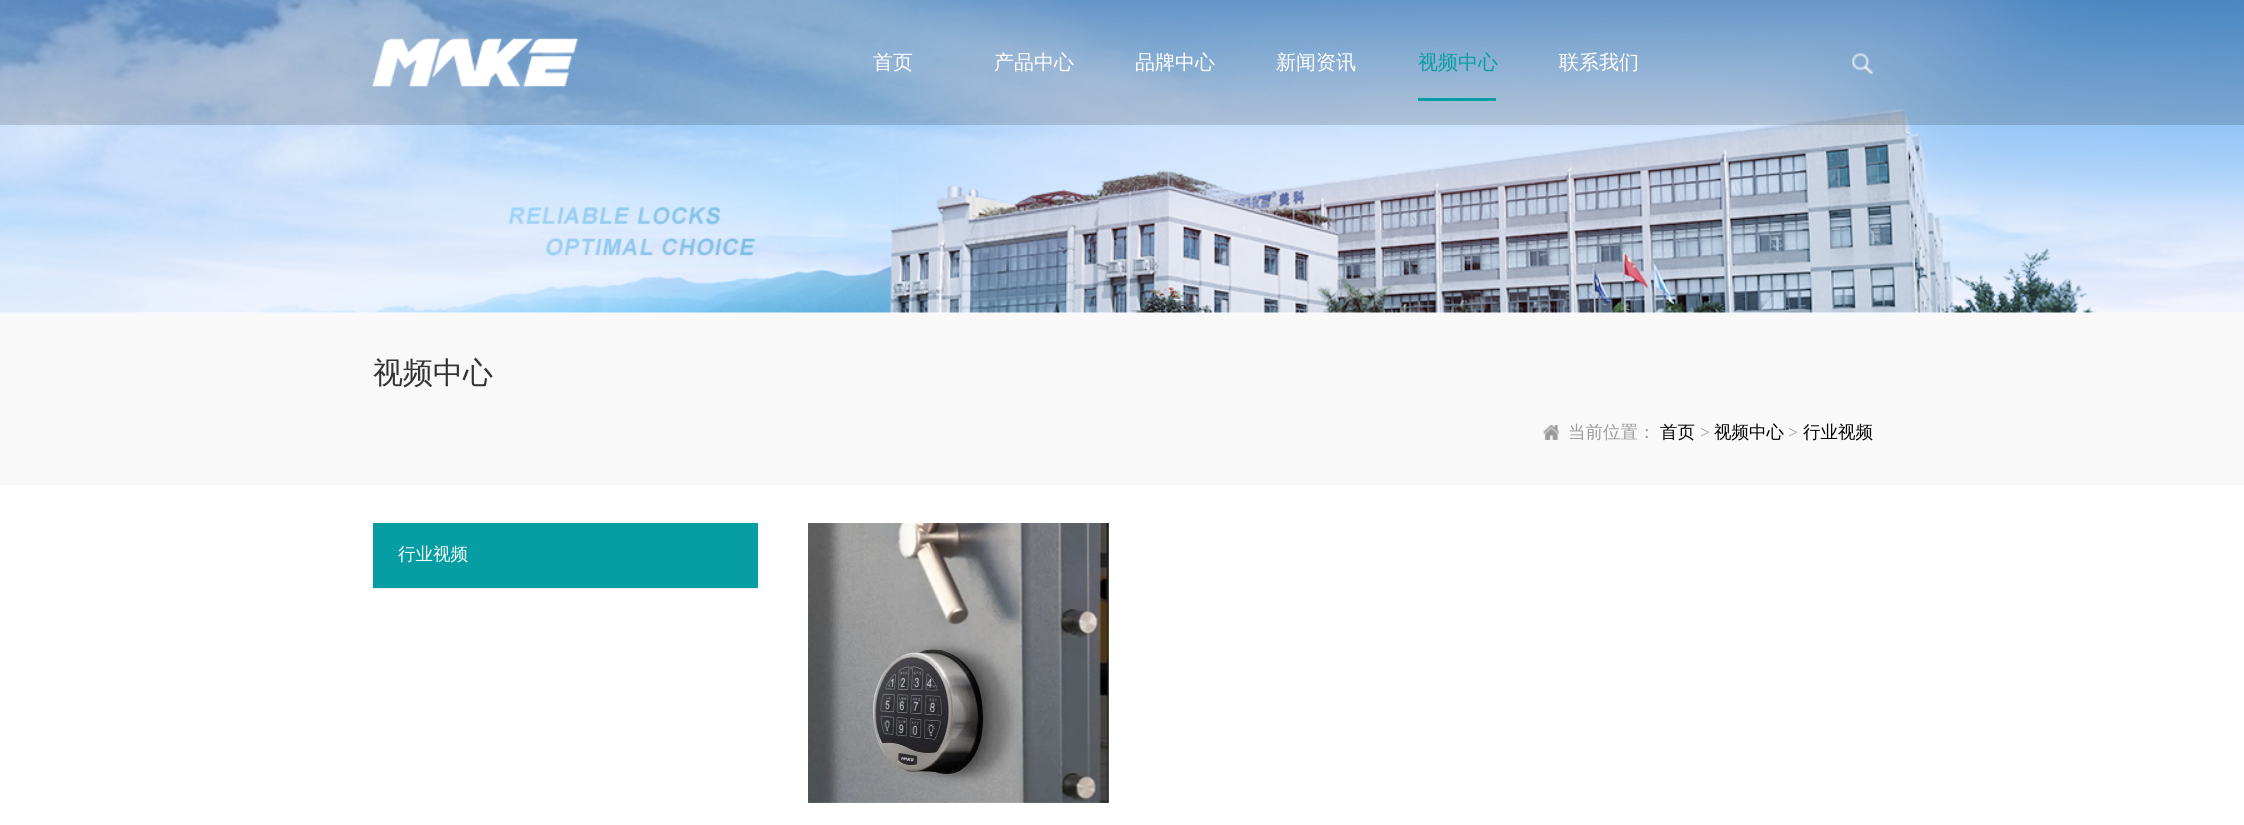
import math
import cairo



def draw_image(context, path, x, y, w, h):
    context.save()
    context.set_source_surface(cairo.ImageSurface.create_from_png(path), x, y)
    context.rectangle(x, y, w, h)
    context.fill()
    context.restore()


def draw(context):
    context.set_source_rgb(1, 1, 1)
    context.paint()
    draw_image(context, "images/1.png", 0, 0, 2244, 313)
    context.set_source_rgba(0, 0, 0, 0.15)
    context.rectangle(0, 0, 2244, 125)
    context.fill()
    draw_image(context, "images/2.png", 372, 38, 206, 49)
    context.set_source_rgb(6 / 255, 158 / 255, 163 / 255)
    context.rectangle(1418, 98, 78, 3)
    context.fill()
    draw_image(context, "images/3.png", 1852, 53, 21, 22)
    context.set_source_rgb(249 / 255, 249 / 255, 249 / 255)
    context.rectangle(0, 313, 2244, 172)
    context.fill()
    draw_image(context, "images/4.png", 1543, 425, 16, 15)
    context.set_source_rgb(6 / 255, 158 / 255, 163 / 255)
    context.rectangle(373, 523, 385, 65)
    context.fill()
    context.set_source_rgb(235 / 255, 235 / 255, 235 / 255)
    context.rectangle(373, 588, 385, 1)
    context.fill()
    draw_image(context, "images/5.png", 808, 523, 301, 280)
    context.select_font_face("WenQuanYi Zen Hei Medium")
    context.set_font_size(20)
    context.set_source_rgb(1, 1, 1)
    context.move_to(873, 69)
    context.show_text("首页")
    context.move_to(994, 69)
    context.show_text("产品中心")
    context.move_to(1135, 69)
    context.show_text("品牌中心")
    context.move_to(1276, 69)
    context.show_text("新闻资讯")
    context.set_source_rgb(6 / 255, 158 / 255, 163 / 255)
    context.move_to(1418, 69)
    context.show_text("视频中心")
    context.set_source_rgb(1, 1, 1)
    context.move_to(1559, 69)
    context.show_text("联系我们")
    context.set_font_size(30)
    context.set_source_rgb(51 / 255, 51 / 255, 51 / 255)
    context.move_to(373, 383)
    context.show_text("视频中心")
    context.set_font_size(17.5)
    context.set_source_rgb(153 / 255, 153 / 255, 153 / 255)
    context.move_to(1568, 438)
    context.show_text("当前位置：")
    context.set_source_rgb(0, 0, 0)
    context.move_to(1660, 438)
    context.show_text("首页")
    context.select_font_face("Liberation Serif")
    context.set_source_rgb(153 / 255, 153 / 255, 153 / 255)
    context.move_to(1700, 438)
    context.show_text(">")
    context.select_font_face("WenQuanYi Zen Hei Medium")
    context.set_source_rgb(0, 0, 0)
    context.move_to(1714, 438)
    context.show_text("视频中心")
    context.select_font_face("Liberation Serif")
    context.set_source_rgb(153 / 255, 153 / 255, 153 / 255)
    context.move_to(1788, 438)
    context.show_text(">")
    context.select_font_face("WenQuanYi Zen Hei Medium")
    context.set_source_rgb(0, 0, 0)
    context.move_to(1803, 438)
    context.show_text("行业视频")
    context.set_source_rgb(1, 1, 1)
    context.move_to(398, 560)
    context.show_text("行业视频")


surface = cairo.ImageSurface(cairo.Format.RGB24, 2244, 825)
context = cairo.Context(surface)
options = cairo.FontOptions()
options.set_hint_metrics(cairo.HintMetrics.OFF)
options.set_hint_style(cairo.HintStyle.NONE)
context.set_font_options(options)
context.set_miter_limit(4)
draw(context)
surface.write_to_png("out.png")
